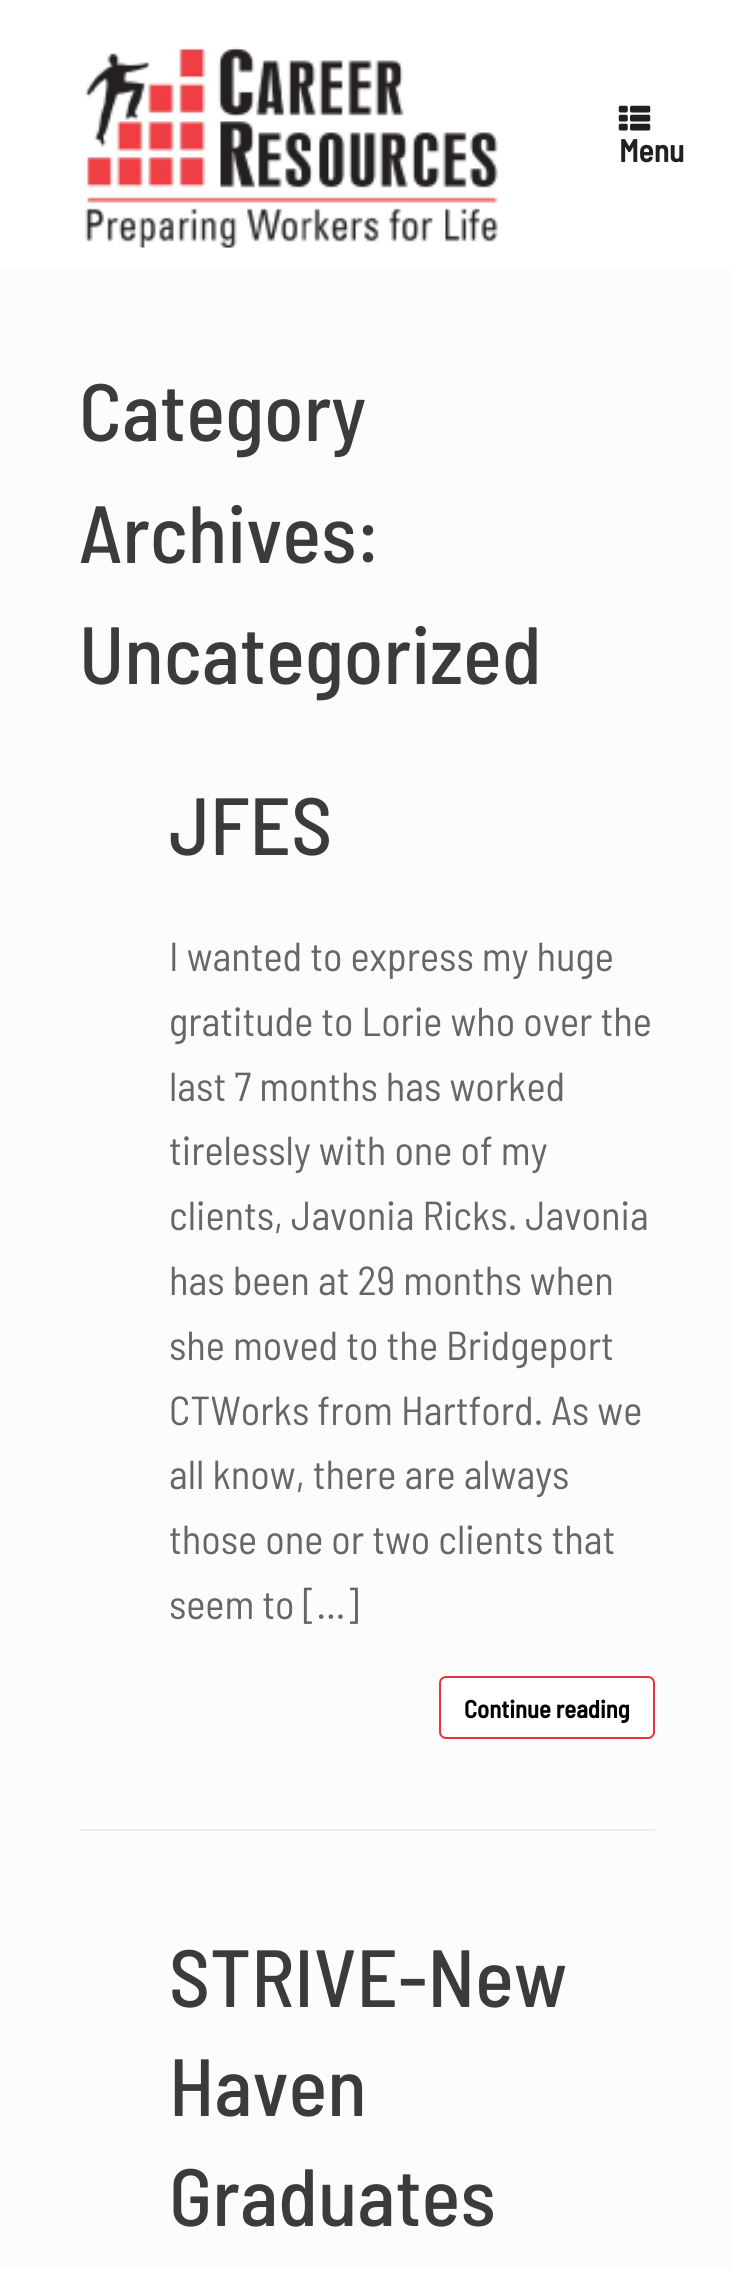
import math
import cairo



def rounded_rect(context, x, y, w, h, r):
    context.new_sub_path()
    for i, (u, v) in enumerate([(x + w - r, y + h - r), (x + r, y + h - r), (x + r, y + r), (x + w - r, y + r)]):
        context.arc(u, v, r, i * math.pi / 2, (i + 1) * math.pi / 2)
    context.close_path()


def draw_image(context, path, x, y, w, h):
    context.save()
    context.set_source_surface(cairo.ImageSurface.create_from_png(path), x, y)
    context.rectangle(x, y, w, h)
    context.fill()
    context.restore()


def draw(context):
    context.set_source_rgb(1, 1, 1)
    context.paint()
    draw_image(context, "images/1.png", 85, 47, 413, 201)
    draw_image(context, "images/2.png", 618, 105, 33, 26)
    context.set_source_rgb(252 / 255, 252 / 255, 252 / 255)
    context.rectangle(0, 270, 732, 1999)
    context.fill()
    context.set_source_rgb(238 / 255, 238 / 255, 238 / 255)
    context.rectangle(79, 1829, 576, 2)
    context.fill()
    context.set_source_rgb(1, 1, 1)
    rounded_rect(context, 440, 1677, 214, 61, 6)
    context.fill_preserve()
    context.set_source_rgb(234 / 255, 52 / 255, 56 / 255)
    context.stroke()
    context.select_font_face("Barlow Semi Condensed", cairo.FontSlant.NORMAL, cairo.FontWeight.BOLD)
    context.set_font_size(31.5)
    context.set_source_rgb(35 / 255, 31 / 255, 32 / 255)
    context.move_to(619, 162)
    context.show_text("Menu")
    context.select_font_face("Barlow Semi Condensed Medium")
    context.set_font_size(81)
    context.set_source_rgb(59 / 255, 59 / 255, 59 / 255)
    context.move_to(79, 441)
    context.show_text("Category")
    context.move_to(79, 563)
    context.show_text("Archives:")
    context.move_to(79, 684)
    context.show_text("Uncategorized")
    context.move_to(169, 855)
    context.show_text("JFES")
    context.select_font_face("Barlow Semi Condensed")
    context.set_font_size(40.5)
    context.set_source_rgb(102 / 255, 102 / 255, 102 / 255)
    context.move_to(169, 971)
    context.show_text("I wanted to express my huge")
    context.move_to(169, 1036)
    context.show_text("gratitude to Lorie who over the")
    context.move_to(169, 1101)
    context.show_text("last 7 months has worked")
    context.move_to(169, 1165)
    context.show_text("tirelessly with one of my")
    context.move_to(169, 1230)
    context.show_text("clients, Javonia Ricks. Javonia")
    context.move_to(169, 1295)
    context.show_text("has been at 29 months when")
    context.move_to(169, 1360)
    context.show_text("she moved to the Bridgeport")
    context.move_to(169, 1425)
    context.show_text("CTWorks from Hartford. As we")
    context.move_to(169, 1489)
    context.show_text("all know, there are always")
    context.move_to(169, 1554)
    context.show_text("those one or two clients that")
    context.move_to(169, 1619)
    context.show_text("seem to […]")
    context.select_font_face("Barlow Semi Condensed", cairo.FontSlant.NORMAL, cairo.FontWeight.BOLD)
    context.set_font_size(24.75)
    context.set_source_rgb(0, 0, 0)
    context.move_to(464, 1718)
    context.show_text("Continue reading")
    context.select_font_face("Barlow Semi Condensed Medium")
    context.set_font_size(81)
    context.set_source_rgb(59 / 255, 59 / 255, 59 / 255)
    context.move_to(169, 2007)
    context.show_text("STRIVE-New")
    context.move_to(169, 2116)
    context.show_text("Haven")
    context.move_to(169, 2226)
    context.show_text("Graduates")


surface = cairo.ImageSurface(cairo.Format.RGB24, 732, 2269)
context = cairo.Context(surface)
options = cairo.FontOptions()
options.set_hint_metrics(cairo.HintMetrics.OFF)
options.set_hint_style(cairo.HintStyle.NONE)
context.set_font_options(options)
context.set_miter_limit(4)
draw(context)
surface.write_to_png("out.png")
